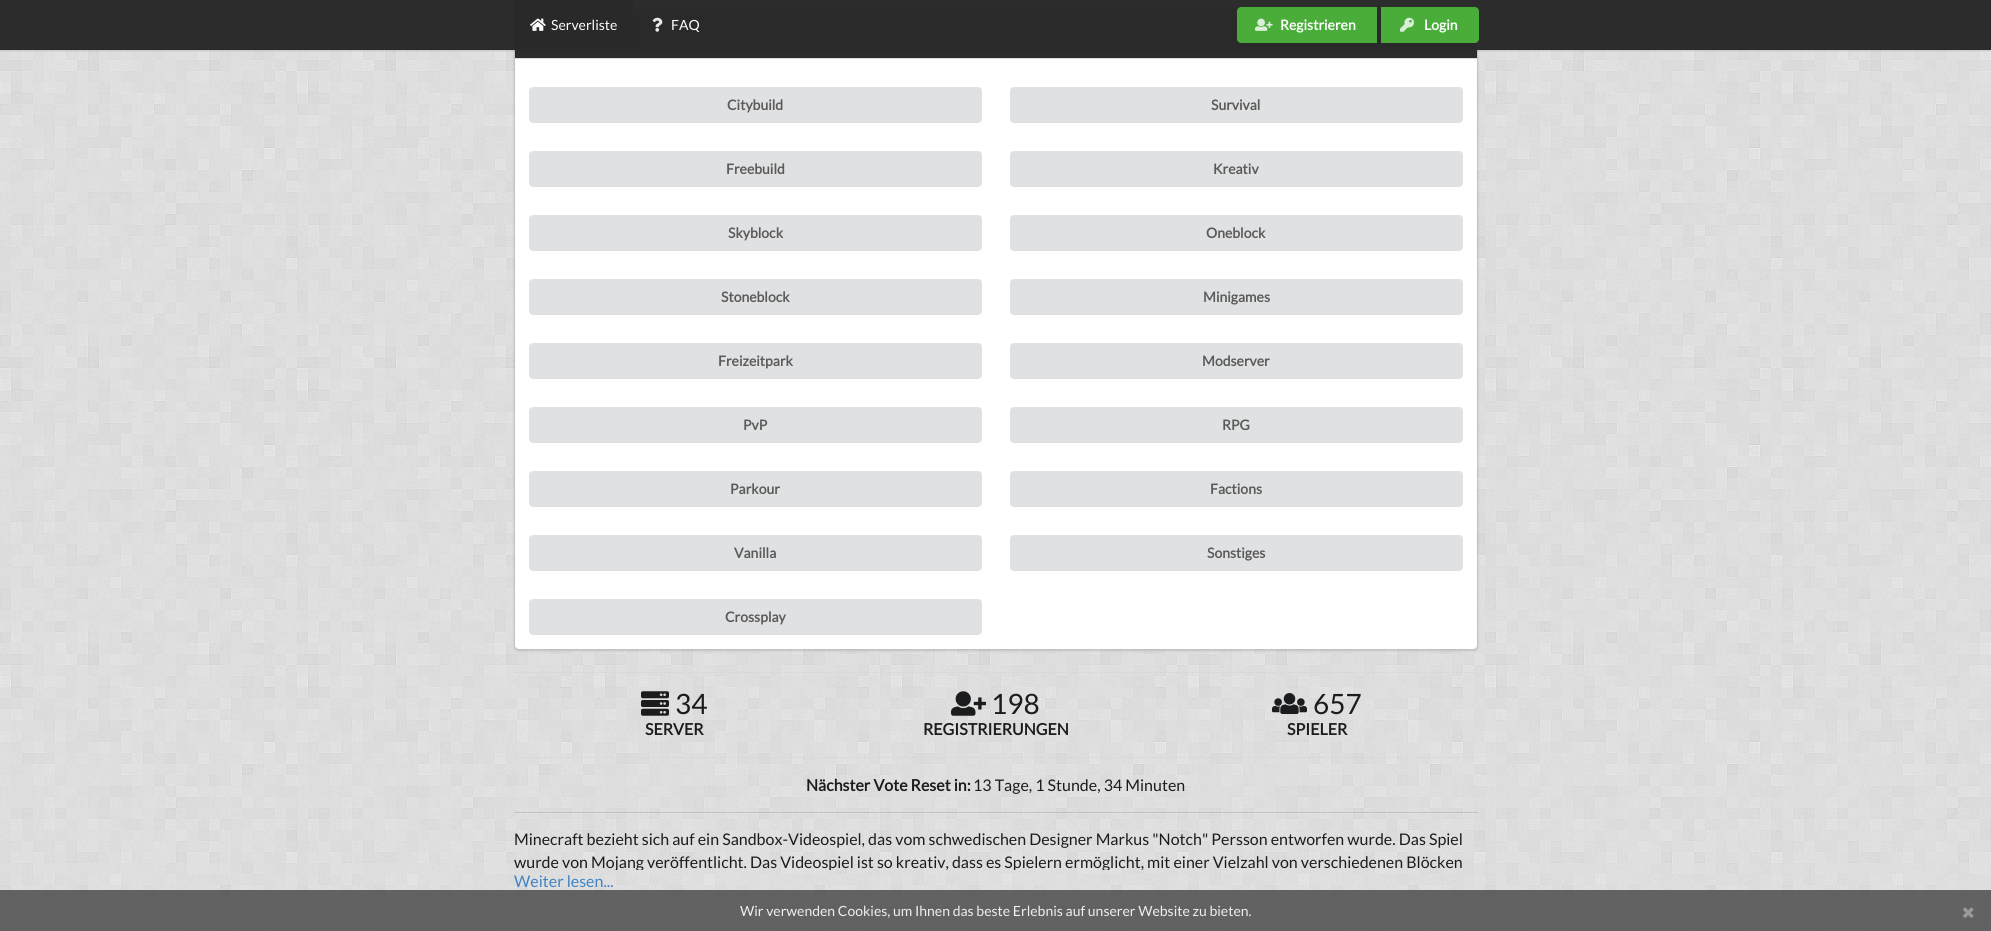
import math
import cairo



def rounded_rect(context, x, y, w, h, r):
    context.new_sub_path()
    for i, (u, v) in enumerate([(x + w - r, y + h - r), (x + r, y + h - r), (x + r, y + r), (x + w - r, y + r)]):
        context.arc(u, v, r, i * math.pi / 2, (i + 1) * math.pi / 2)
    context.close_path()


def draw_shadow(context, x, y, w, h, r, blur, alpha):
    context.push_group_with_content(cairo.Content.ALPHA)
    context.set_operator(cairo.Operator.SOURCE)
    for i in range(15, -16, -2):
        e = blur * i / 6
        if min(w, h) + 2 * e > 0:
            context.set_source_rgba(0, 0, 0, alpha * math.erfc((i - 1) / 8.5) / 2)
            rounded_rect(context, x - e, y - e, w + 2 * e, h + 2 * e, max(0, min(r + e + blur * .6, min(w, h) / 2 + e)))
            context.fill()
    context.mask(context.pop_group())


def draw_image(context, path, x, y, w, h):
    context.save()
    context.set_source_surface(cairo.ImageSurface.create_from_png(path), x, y)
    context.rectangle(x, y, w, h)
    context.fill()
    context.restore()


def draw(context):
    context.set_source_rgb(240 / 255, 240 / 255, 240 / 255)
    context.paint()
    draw_image(context, "images/1.png", 0, 0, 1991, 931)
    context.save()
    context.set_fill_rule(cairo.FillRule.EVEN_ODD)
    context.new_path()
    context.move_to(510, 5)
    context.line_to(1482, 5)
    context.line_to(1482, 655)
    context.line_to(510, 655)
    context.close_path()
    context.move_to(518, 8)
    context.line_to(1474, 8)
    context.curve_to(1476, 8, 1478, 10, 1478, 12)
    context.line_to(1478, 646)
    context.curve_to(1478, 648, 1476, 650, 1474, 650)
    context.line_to(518, 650)
    context.curve_to(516, 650, 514, 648, 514, 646)
    context.line_to(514, 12)
    context.curve_to(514, 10, 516, 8, 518, 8)
    context.close_path()
    context.clip()
    context.set_source_rgb(34 / 255, 36 / 255, 38 / 255)
    draw_shadow(context, 514, 9, 964, 642, 4, 1, 0.15)
    context.restore()
    rounded_rect(context, 514.5, 8.5, 963, 641, 3.5)
    context.set_source_rgba(34 / 255, 36 / 255, 38 / 255, 0.15)
    context.set_line_width(1)
    context.stroke()
    context.set_source_rgba(43 / 255, 43 / 255, 43 / 255, 0.99)
    context.rectangle(515, 9, 962, 49)
    context.fill()
    context.save()
    context.rectangle(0, 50, 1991, 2)
    context.clip()
    context.set_source_rgb(34 / 255, 36 / 255, 38 / 255)
    draw_shadow(context, 0, 1, 1991, 50, 0, 1, 0.15)
    context.restore()
    context.rectangle(0, 0, 1991, 49)
    context.fill()
    context.set_source_rgb(42 / 255, 43 / 255, 43 / 255)
    context.rectangle(0, 49, 1991, 1)
    context.fill()
    context.set_source_rgb(41 / 255, 41 / 255, 41 / 255)
    context.rectangle(513, 0, 120, 49)
    context.fill()
    draw_image(context, "images/2.png", 530, 18, 16, 13)
    draw_image(context, "images/3.png", 652, 17, 11, 15)
    context.set_source_rgb(74 / 255, 173 / 255, 58 / 255)
    context.new_path()
    context.move_to(1241, 7)
    context.line_to(1377, 7)
    context.line_to(1377, 43)
    context.line_to(1241, 43)
    context.curve_to(1239, 43, 1237, 41, 1237, 39)
    context.line_to(1237, 11)
    context.curve_to(1237, 9, 1239, 7, 1241, 7)
    context.close_path()
    context.fill()
    draw_image(context, "images/4.png", 1255, 18, 18, 13)
    context.new_path()
    context.move_to(1381, 7)
    context.line_to(1475, 7)
    context.curve_to(1477, 7, 1479, 9, 1479, 11)
    context.line_to(1479, 39)
    context.curve_to(1479, 41, 1477, 43, 1475, 43)
    context.line_to(1381, 43)
    context.close_path()
    context.fill()
    draw_image(context, "images/5.png", 1400, 17, 14, 15)
    context.set_source_rgb(1, 1, 1)
    context.new_path()
    context.move_to(515, 58)
    context.line_to(1477, 58)
    context.line_to(1477, 645)
    context.curve_to(1477, 647, 1475, 649, 1473, 649)
    context.line_to(519, 649)
    context.curve_to(517, 649, 515, 647, 515, 645)
    context.close_path()
    context.fill()
    context.set_source_rgb(222 / 255, 222 / 255, 222 / 255)
    context.rectangle(515, 58, 962, 1)
    context.fill()
    context.set_source_rgb(224 / 255, 225 / 255, 226 / 255)
    rounded_rect(context, 529, 87, 453, 36, 4)
    context.fill()
    rounded_rect(context, 1010, 87, 453, 36, 4)
    context.fill()
    rounded_rect(context, 529, 151, 453, 36, 4)
    context.fill()
    rounded_rect(context, 1010, 151, 453, 36, 4)
    context.fill()
    rounded_rect(context, 529, 215, 453, 36, 4)
    context.fill()
    rounded_rect(context, 1010, 215, 453, 36, 4)
    context.fill()
    rounded_rect(context, 529, 279, 453, 36, 4)
    context.fill()
    rounded_rect(context, 1010, 279, 453, 36, 4)
    context.fill()
    rounded_rect(context, 529, 343, 453, 36, 4)
    context.fill()
    rounded_rect(context, 1010, 343, 453, 36, 4)
    context.fill()
    rounded_rect(context, 529, 407, 453, 36, 4)
    context.fill()
    rounded_rect(context, 1010, 407, 453, 36, 4)
    context.fill()
    rounded_rect(context, 529, 471, 453, 36, 4)
    context.fill()
    rounded_rect(context, 1010, 471, 453, 36, 4)
    context.fill()
    rounded_rect(context, 529, 535, 453, 36, 4)
    context.fill()
    rounded_rect(context, 1010, 535, 453, 36, 4)
    context.fill()
    rounded_rect(context, 529, 599, 453, 36, 4)
    context.fill()
    context.new_path()
    context.move_to(514, 672.5)
    context.line_to(1478, 672.5)
    context.set_source_rgb(212 / 255, 212 / 255, 213 / 255)
    context.set_dash([1, 1])
    context.stroke()
    context.new_path()
    context.move_to(514, 757.5)
    context.line_to(1478, 757.5)
    context.stroke()
    draw_image(context, "images/6.png", 641, 691, 28, 25)
    draw_image(context, "images/7.png", 951, 691, 35, 25)
    draw_image(context, "images/8.png", 1272, 693, 35, 21)
    context.set_source_rgba(34 / 255, 36 / 255, 38 / 255, 0.15)
    context.rectangle(514, 812, 964, 1)
    context.fill()
    context.set_source_rgba(1, 1, 1, 0.1)
    context.rectangle(514, 813, 964, 1)
    context.fill()
    context.set_source_rgba(34 / 255, 36 / 255, 38 / 255, 0.15)
    context.rectangle(514, 907, 964, 1)
    context.fill()
    context.set_source_rgba(1, 1, 1, 0.1)
    context.rectangle(514, 908, 964, 1)
    context.fill()
    context.set_source_rgba(85 / 255, 85 / 255, 85 / 255, 0.9)
    context.rectangle(0, 890, 1991, 41)
    context.fill()
    draw_image(context, "images/9.png", 1963, 907, 11, 11)
    context.select_font_face("Lato")
    context.set_font_size(14)
    context.set_source_rgb(253 / 255, 253 / 255, 253 / 255)
    context.move_to(551, 30)
    context.show_text("Serverliste")
    context.move_to(671, 30)
    context.show_text("FAQ")
    context.select_font_face("Lato", cairo.FontSlant.NORMAL, cairo.FontWeight.BOLD)
    context.move_to(1280, 30)
    context.show_text("Registrieren")
    context.move_to(1424, 30)
    context.show_text("Login")
    context.set_source_rgb(90 / 255, 90 / 255, 90 / 255)
    context.move_to(727, 110)
    context.show_text("Citybuild")
    context.move_to(1211, 110)
    context.show_text("Survival")
    context.move_to(726, 174)
    context.show_text("Freebuild")
    context.move_to(1213, 174)
    context.show_text("Kreativ")
    context.move_to(728, 238)
    context.show_text("Skyblock")
    context.move_to(1206, 238)
    context.show_text("Oneblock")
    context.move_to(721, 302)
    context.show_text("Stoneblock")
    context.move_to(1203, 302)
    context.show_text("Minigames")
    context.move_to(718, 366)
    context.show_text("Freizeitpark")
    context.move_to(1202, 366)
    context.show_text("Modserver")
    context.move_to(743, 430)
    context.show_text("PvP")
    context.move_to(1222, 430)
    context.show_text("RPG")
    context.move_to(730, 494)
    context.show_text("Parkour")
    context.move_to(1210, 494)
    context.show_text("Factions")
    context.move_to(734, 558)
    context.show_text("Vanilla")
    context.move_to(1207, 558)
    context.show_text("Sonstiges")
    context.move_to(725, 622)
    context.show_text("Crossplay")
    context.select_font_face("Lato")
    context.set_font_size(28)
    context.set_source_rgb(27 / 255, 28 / 255, 29 / 255)
    context.move_to(675, 714)
    context.show_text("34")
    context.select_font_face("Lato", cairo.FontSlant.NORMAL, cairo.FontWeight.BOLD)
    context.set_font_size(16)
    context.move_to(645, 735)
    context.show_text("SERVER")
    context.select_font_face("Lato")
    context.set_font_size(28)
    context.move_to(991, 714)
    context.show_text("198")
    context.select_font_face("Lato", cairo.FontSlant.NORMAL, cairo.FontWeight.BOLD)
    context.set_font_size(16)
    context.move_to(923, 735)
    context.show_text("REGISTRIERUNGEN")
    context.select_font_face("Lato")
    context.set_font_size(28)
    context.move_to(1313, 714)
    context.show_text("657")
    context.select_font_face("Lato", cairo.FontSlant.NORMAL, cairo.FontWeight.BOLD)
    context.set_font_size(16)
    context.move_to(1287, 735)
    context.show_text("SPIELER")
    context.move_to(806, 791)
    context.show_text("Nächster Vote Reset in:")
    context.select_font_face("Lato")
    context.move_to(973, 791)
    context.show_text("13 Tage, 1 Stunde, 34 Minuten")
    context.move_to(514, 845)
    context.show_text("Minecraft bezieht sich auf ein Sandbox-Videospiel, das vom schwedischen Designer Markus \"Notch\" Persson entworfen wurde. Das Spiel")
    context.save()
    context.rectangle(514, 828, 964, 42)
    context.clip()
    context.move_to(514, 868)
    context.show_text("wurde von Mojang veröffentlicht. Das Videospiel ist so kreativ, dass es Spielern ermöglicht, mit einer Vielzahl von verschiedenen Blöcken")
    context.restore()
    context.set_source_rgb(65 / 255, 131 / 255, 196 / 255)
    context.move_to(514, 887)
    context.show_text("Weiter lesen...")
    context.set_font_size(14)
    context.set_source_rgb(239 / 255, 239 / 255, 239 / 255)
    context.move_to(740, 916)
    context.show_text("Wir verwenden Cookies, um Ihnen das beste Erlebnis auf unserer Website zu bieten.")


surface = cairo.ImageSurface(cairo.Format.RGB24, 1991, 931)
context = cairo.Context(surface)
options = cairo.FontOptions()
options.set_hint_metrics(cairo.HintMetrics.OFF)
options.set_hint_style(cairo.HintStyle.NONE)
context.set_font_options(options)
context.set_miter_limit(4)
draw(context)
surface.write_to_png("out.png")
